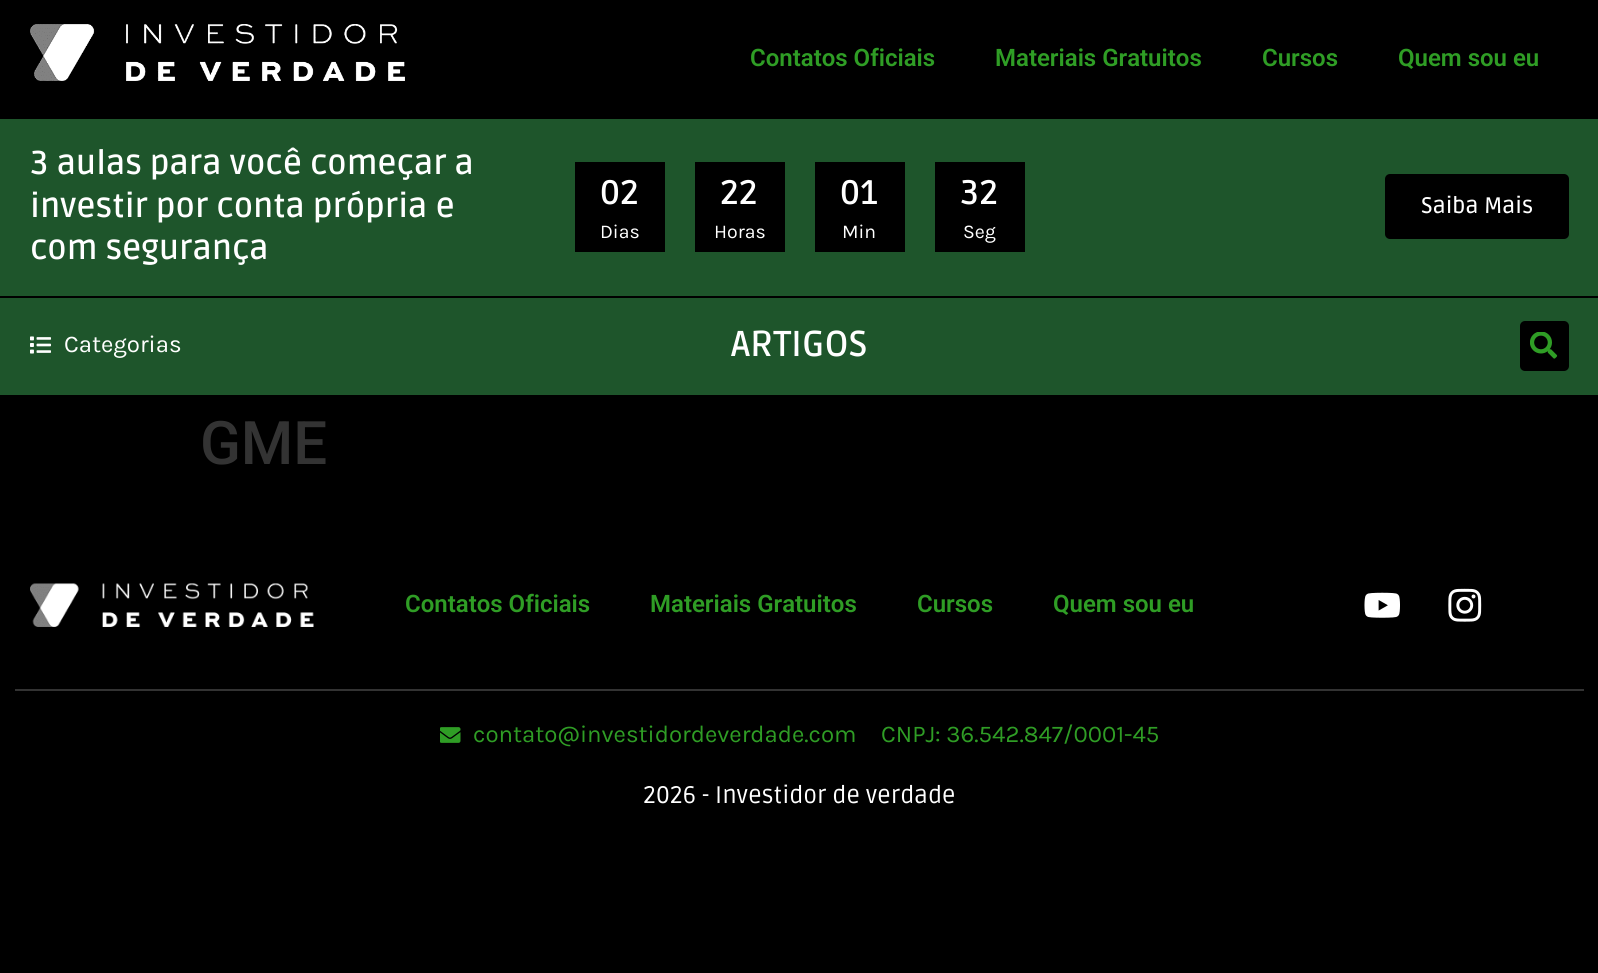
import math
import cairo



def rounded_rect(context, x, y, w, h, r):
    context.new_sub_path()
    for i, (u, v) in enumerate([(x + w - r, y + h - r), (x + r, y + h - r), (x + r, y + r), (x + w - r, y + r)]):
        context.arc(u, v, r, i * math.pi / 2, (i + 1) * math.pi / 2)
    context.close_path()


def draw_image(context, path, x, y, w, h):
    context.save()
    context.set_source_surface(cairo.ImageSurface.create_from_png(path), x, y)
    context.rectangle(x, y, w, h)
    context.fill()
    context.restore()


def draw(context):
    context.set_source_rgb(0, 0, 0)
    context.paint()
    draw_image(context, "images/1.png", 30, 24, 375, 57)
    context.set_source_rgb(30 / 255, 85 / 255, 43 / 255)
    context.rectangle(0, 119, 1598, 177)
    context.fill()
    context.set_source_rgb(0, 0, 0)
    context.rectangle(575, 162, 90, 90)
    context.fill()
    context.rectangle(695, 162, 90, 90)
    context.fill()
    context.rectangle(815, 162, 90, 90)
    context.fill()
    context.rectangle(935, 162, 90, 90)
    context.fill()
    rounded_rect(context, 1385, 174, 184, 65, 5)
    context.fill()
    context.set_source_rgb(30 / 255, 85 / 255, 43 / 255)
    context.rectangle(0, 298, 1598, 97)
    context.fill()
    draw_image(context, "images/2.png", 30, 336, 21, 18)
    context.set_source_rgb(0, 0, 0)
    rounded_rect(context, 1520, 321, 49, 50, 5)
    context.fill()
    draw_image(context, "images/3.png", 1530, 332, 28, 27)
    context.set_source_rgb(51 / 255, 51 / 255, 51 / 255)
    context.rectangle(15, 689, 1569, 2)
    context.fill()
    draw_image(context, "images/4.png", 30, 583, 284, 44)
    draw_image(context, "images/5.png", 1364, 592, 36, 26)
    draw_image(context, "images/6.png", 1448, 588, 34, 34)
    draw_image(context, "images/7.png", 440, 727, 21, 16)
    context.select_font_face("Roboto SemiBold")
    context.set_font_size(24)
    context.set_source_rgb(47 / 255, 157 / 255, 37 / 255)
    context.move_to(750, 66)
    context.show_text("Contatos Oficiais")
    context.move_to(995, 66)
    context.show_text("Materiais Gratuitos")
    context.move_to(1262, 66)
    context.show_text("Cursos")
    context.move_to(1398, 66)
    context.show_text("Quem sou eu")
    context.select_font_face("Ruda SemiBold")
    context.set_font_size(33)
    context.set_source_rgb(1, 1, 1)
    context.move_to(30, 174)
    context.show_text("3 aulas para você começar a")
    context.move_to(30, 217)
    context.show_text("investir por conta própria e")
    context.move_to(30, 259)
    context.show_text("com segurança")
    context.set_font_size(34)
    context.move_to(600, 204)
    context.show_text("02")
    context.select_font_face("Karla")
    context.set_font_size(19.5)
    context.move_to(600, 238)
    context.show_text("Dias")
    context.select_font_face("Ruda SemiBold")
    context.set_font_size(34)
    context.move_to(720, 204)
    context.show_text("22")
    context.select_font_face("Karla")
    context.set_font_size(19.5)
    context.move_to(714, 238)
    context.show_text("Horas")
    context.select_font_face("Ruda SemiBold")
    context.set_font_size(34)
    context.move_to(840, 204)
    context.show_text("01")
    context.select_font_face("Karla")
    context.set_font_size(19.5)
    context.move_to(842, 238)
    context.show_text("Min")
    context.select_font_face("Ruda SemiBold")
    context.set_font_size(34)
    context.move_to(960, 204)
    context.show_text("32")
    context.select_font_face("Karla")
    context.set_font_size(19.5)
    context.move_to(963, 238)
    context.show_text("Seg")
    context.select_font_face("Ruda Medium")
    context.set_font_size(22.5)
    context.move_to(1421, 213)
    context.show_text("Saiba Mais")
    context.select_font_face("Karla")
    context.set_font_size(24)
    context.move_to(64, 352)
    context.show_text("Categorias")
    context.select_font_face("Ruda SemiBold")
    context.set_font_size(36)
    context.move_to(731, 356)
    context.show_text("ARTIGOS")
    context.select_font_face("Roboto Medium")
    context.set_font_size(60)
    context.set_source_rgb(51 / 255, 51 / 255, 51 / 255)
    context.move_to(200, 464)
    context.show_text("GME")
    context.select_font_face("Roboto SemiBold")
    context.set_font_size(24)
    context.set_source_rgb(47 / 255, 157 / 255, 37 / 255)
    context.move_to(405, 612)
    context.show_text("Contatos Oficiais")
    context.move_to(650, 612)
    context.show_text("Materiais Gratuitos")
    context.move_to(917, 612)
    context.show_text("Cursos")
    context.move_to(1053, 612)
    context.show_text("Quem sou eu")
    context.select_font_face("Karla")
    context.move_to(473, 742)
    context.show_text("contato@investidordeverdade.com")
    context.move_to(881, 742)
    context.show_text("CNPJ: 36.542.847/0001-45")
    context.select_font_face("Ruda")
    context.set_source_rgb(1, 1, 1)
    context.move_to(643, 803)
    context.show_text("2026 - Investidor de verdade")


surface = cairo.ImageSurface(cairo.Format.RGB24, 1598, 973)
context = cairo.Context(surface)
options = cairo.FontOptions()
options.set_hint_metrics(cairo.HintMetrics.OFF)
options.set_hint_style(cairo.HintStyle.NONE)
context.set_font_options(options)
context.set_miter_limit(4)
draw(context)
surface.write_to_png("out.png")
